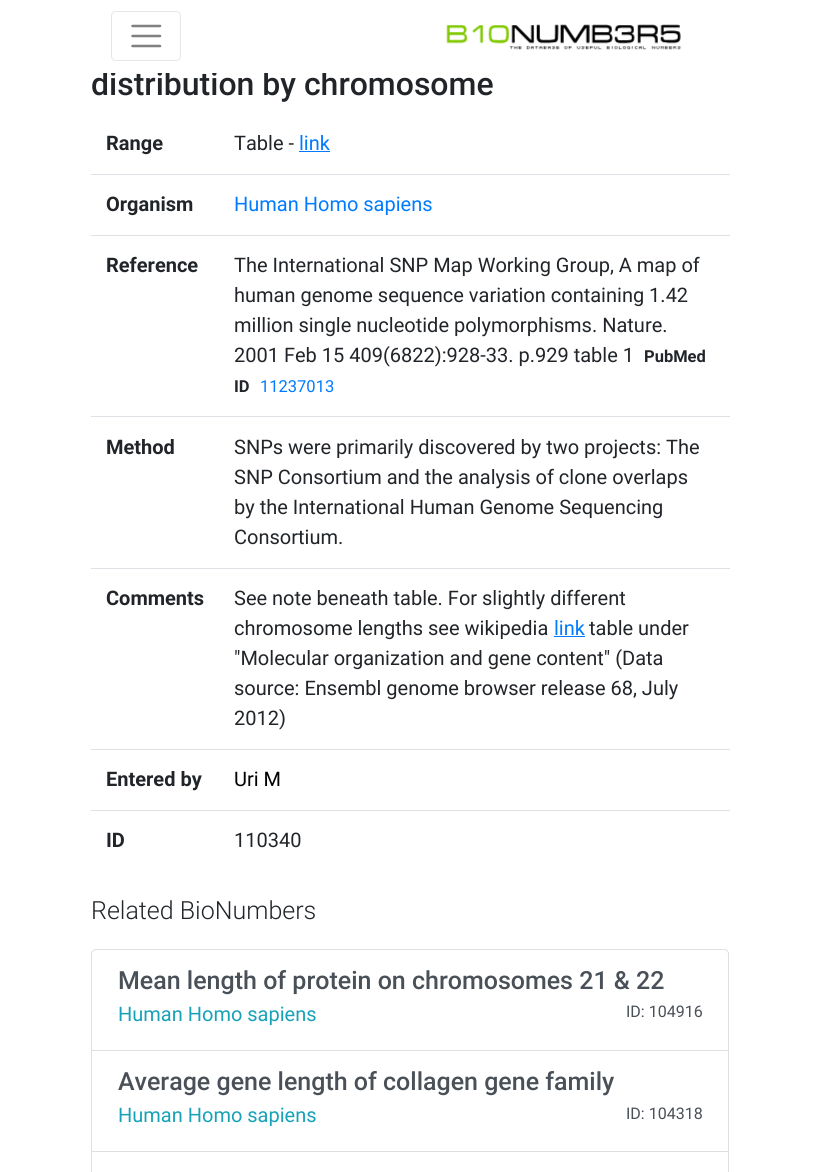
import math
import cairo



def rounded_rect(context, x, y, w, h, r):
    context.new_sub_path()
    for i, (u, v) in enumerate([(x + w - r, y + h - r), (x + r, y + h - r), (x + r, y + r), (x + w - r, y + r)]):
        context.arc(u, v, r, i * math.pi / 2, (i + 1) * math.pi / 2)
    context.close_path()


def draw_image(context, path, x, y, w, h):
    context.save()
    context.set_source_surface(cairo.ImageSurface.create_from_png(path), x, y)
    context.rectangle(x, y, w, h)
    context.fill()
    context.restore()


def draw(context):
    context.set_source_rgb(1, 1, 1)
    context.paint()
    rounded_rect(context, 111.5, 11.5, 69, 49, 4.5)
    context.set_source_rgb(230 / 255, 230 / 255, 230 / 255)
    context.set_line_width(1)
    context.stroke()
    context.new_path()
    context.move_to(132.5, 26)
    context.line_to(160, 26)
    context.move_to(132.5, 36)
    context.line_to(160, 36)
    context.move_to(132.5, 46)
    context.line_to(160, 46)
    context.set_source_rgb(128 / 255, 128 / 255, 128 / 255)
    context.set_line_width(2.5)
    context.set_line_cap(cairo.LineCap.ROUND)
    context.stroke()
    draw_image(context, "images/1.png", 446, 24, 235, 26)
    context.set_source_rgb(0, 123 / 255, 1)
    context.rectangle(299, 151, 31, 1)
    context.fill()
    context.set_source_rgb(222 / 255, 226 / 255, 230 / 255)
    context.rectangle(91, 174, 639, 1)
    context.fill()
    context.rectangle(91, 235, 639, 1)
    context.fill()
    context.rectangle(91, 416, 639, 1)
    context.fill()
    context.rectangle(91, 568, 639, 1)
    context.fill()
    context.set_source_rgb(0, 123 / 255, 1)
    context.rectangle(554, 636, 31, 1)
    context.fill()
    context.set_source_rgb(222 / 255, 226 / 255, 230 / 255)
    context.rectangle(91, 749, 639, 1)
    context.fill()
    context.rectangle(91, 810, 639, 1)
    context.fill()
    context.new_path()
    context.move_to(96, 949.5)
    context.line_to(724, 949.5)
    context.curve_to(726.5, 949.5, 728.5, 951.5, 728.5, 954)
    context.line_to(728.5, 1050.5)
    context.line_to(91.5, 1050.5)
    context.line_to(91.5, 954)
    context.curve_to(91.5, 951.5, 93.5, 949.5, 96, 949.5)
    context.close_path()
    context.set_source_rgb(223 / 255, 223 / 255, 223 / 255)
    context.set_line_width(1)
    context.set_line_cap(cairo.LineCap.BUTT)
    context.stroke()
    context.rectangle(91.5, 1050.5, 637, 102)
    context.stroke()
    context.set_source_rgb(1, 1, 1)
    context.rectangle(92, 1152, 636, 1)
    context.fill()
    context.rectangle(91.5, 1151.5, 637, 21)
    context.set_source_rgb(223 / 255, 223 / 255, 223 / 255)
    context.stroke()
    context.select_font_face("Roboto Medium")
    context.set_font_size(32)
    context.set_source_rgb(33 / 255, 37 / 255, 41 / 255)
    context.move_to(91, 95)
    context.show_text("distribution by chromosome")
    context.set_source_rgb(1, 1, 1)
    context.rectangle(103, 71, 224, 2)
    context.fill()
    context.select_font_face("Roboto", cairo.FontSlant.NORMAL, cairo.FontWeight.BOLD)
    context.set_font_size(20)
    context.set_source_rgb(33 / 255, 37 / 255, 41 / 255)
    context.move_to(106, 150)
    context.show_text("Range")
    context.select_font_face("Roboto")
    context.move_to(234, 150)
    context.show_text("Table -")
    context.set_source_rgb(0, 123 / 255, 1)
    context.move_to(299, 150)
    context.show_text("link")
    context.select_font_face("Roboto", cairo.FontSlant.NORMAL, cairo.FontWeight.BOLD)
    context.set_source_rgb(33 / 255, 37 / 255, 41 / 255)
    context.move_to(106, 211)
    context.show_text("Organism")
    context.select_font_face("Roboto")
    context.set_source_rgb(0, 123 / 255, 1)
    context.move_to(234, 211)
    context.show_text("Human Homo sapiens")
    context.select_font_face("Roboto", cairo.FontSlant.NORMAL, cairo.FontWeight.BOLD)
    context.set_source_rgb(33 / 255, 37 / 255, 41 / 255)
    context.move_to(106, 272)
    context.show_text("Reference")
    context.select_font_face("Roboto")
    context.move_to(234, 272)
    context.show_text("The International SNP Map Working Group, A map of")
    context.move_to(234, 302)
    context.show_text("human genome sequence variation containing 1.42")
    context.move_to(234, 332)
    context.show_text("million single nucleotide polymorphisms. Nature.")
    context.move_to(234, 362)
    context.show_text("2001 Feb 15 409(6822):928-33. p.929 table 1")
    context.select_font_face("Roboto", cairo.FontSlant.NORMAL, cairo.FontWeight.BOLD)
    context.set_font_size(16.5)
    context.move_to(644, 362)
    context.show_text("PubMed")
    context.move_to(234, 392)
    context.show_text("ID")
    context.select_font_face("Roboto")
    context.set_source_rgb(0, 123 / 255, 1)
    context.move_to(260, 392)
    context.show_text("11237013")
    context.select_font_face("Roboto", cairo.FontSlant.NORMAL, cairo.FontWeight.BOLD)
    context.set_font_size(20)
    context.set_source_rgb(33 / 255, 37 / 255, 41 / 255)
    context.move_to(106, 454)
    context.show_text("Method")
    context.select_font_face("Roboto")
    context.move_to(234, 454)
    context.show_text("SNPs were primarily discovered by two projects: The")
    context.move_to(234, 484)
    context.show_text("SNP Consortium and the analysis of clone overlaps")
    context.move_to(234, 514)
    context.show_text("by the International Human Genome Sequencing")
    context.move_to(234, 544)
    context.show_text("Consortium.")
    context.select_font_face("Roboto", cairo.FontSlant.NORMAL, cairo.FontWeight.BOLD)
    context.move_to(106, 605)
    context.show_text("Comments")
    context.select_font_face("Roboto")
    context.move_to(234, 605)
    context.show_text("See note beneath table. For slightly different")
    context.move_to(234, 635)
    context.show_text("chromosome lengths see wikipedia")
    context.set_source_rgb(0, 123 / 255, 1)
    context.move_to(554, 635)
    context.show_text("link")
    context.set_source_rgb(33 / 255, 37 / 255, 41 / 255)
    context.move_to(589, 635)
    context.show_text("table under")
    context.move_to(234, 665)
    context.show_text("\"Molecular organization and gene content\" (Data")
    context.move_to(234, 695)
    context.show_text("source: Ensembl genome browser release 68, July")
    context.move_to(234, 725)
    context.show_text("2012)")
    context.select_font_face("Roboto", cairo.FontSlant.NORMAL, cairo.FontWeight.BOLD)
    context.move_to(106, 786)
    context.show_text("Entered by")
    context.select_font_face("Roboto")
    context.set_source_rgb(0, 0, 0)
    context.move_to(234, 786)
    context.show_text("Uri M")
    context.select_font_face("Roboto", cairo.FontSlant.NORMAL, cairo.FontWeight.BOLD)
    context.set_source_rgb(33 / 255, 37 / 255, 41 / 255)
    context.move_to(106, 847)
    context.show_text("ID")
    context.select_font_face("Roboto")
    context.move_to(234, 847)
    context.show_text("110340")
    context.select_font_face("Roboto Light")
    context.set_font_size(25)
    context.move_to(91, 919)
    context.show_text("Related BioNumbers")
    context.select_font_face("Roboto Medium")
    context.set_source_rgb(73 / 255, 80 / 255, 87 / 255)
    context.move_to(118, 989)
    context.show_text("Mean length of protein on chromosomes 21 & 22")
    context.select_font_face("Roboto")
    context.set_font_size(20)
    context.set_source_rgb(23 / 255, 162 / 255, 184 / 255)
    context.move_to(118, 1021)
    context.show_text("Human Homo sapiens")
    context.set_font_size(16)
    context.set_source_rgb(73 / 255, 80 / 255, 87 / 255)
    context.move_to(626, 1017)
    context.show_text("ID: 104916")
    context.select_font_face("Roboto Medium")
    context.set_font_size(25)
    context.move_to(118, 1090)
    context.show_text("Average gene length of collagen gene family")
    context.select_font_face("Roboto")
    context.set_font_size(20)
    context.set_source_rgb(23 / 255, 162 / 255, 184 / 255)
    context.move_to(118, 1122)
    context.show_text("Human Homo sapiens")
    context.set_font_size(16)
    context.set_source_rgb(73 / 255, 80 / 255, 87 / 255)
    context.move_to(626, 1119)
    context.show_text("ID: 104318")


surface = cairo.ImageSurface(cairo.Format.RGB24, 820, 1172)
context = cairo.Context(surface)
options = cairo.FontOptions()
options.set_hint_metrics(cairo.HintMetrics.OFF)
options.set_hint_style(cairo.HintStyle.NONE)
context.set_font_options(options)
context.set_miter_limit(4)
draw(context)
surface.write_to_png("out.png")
